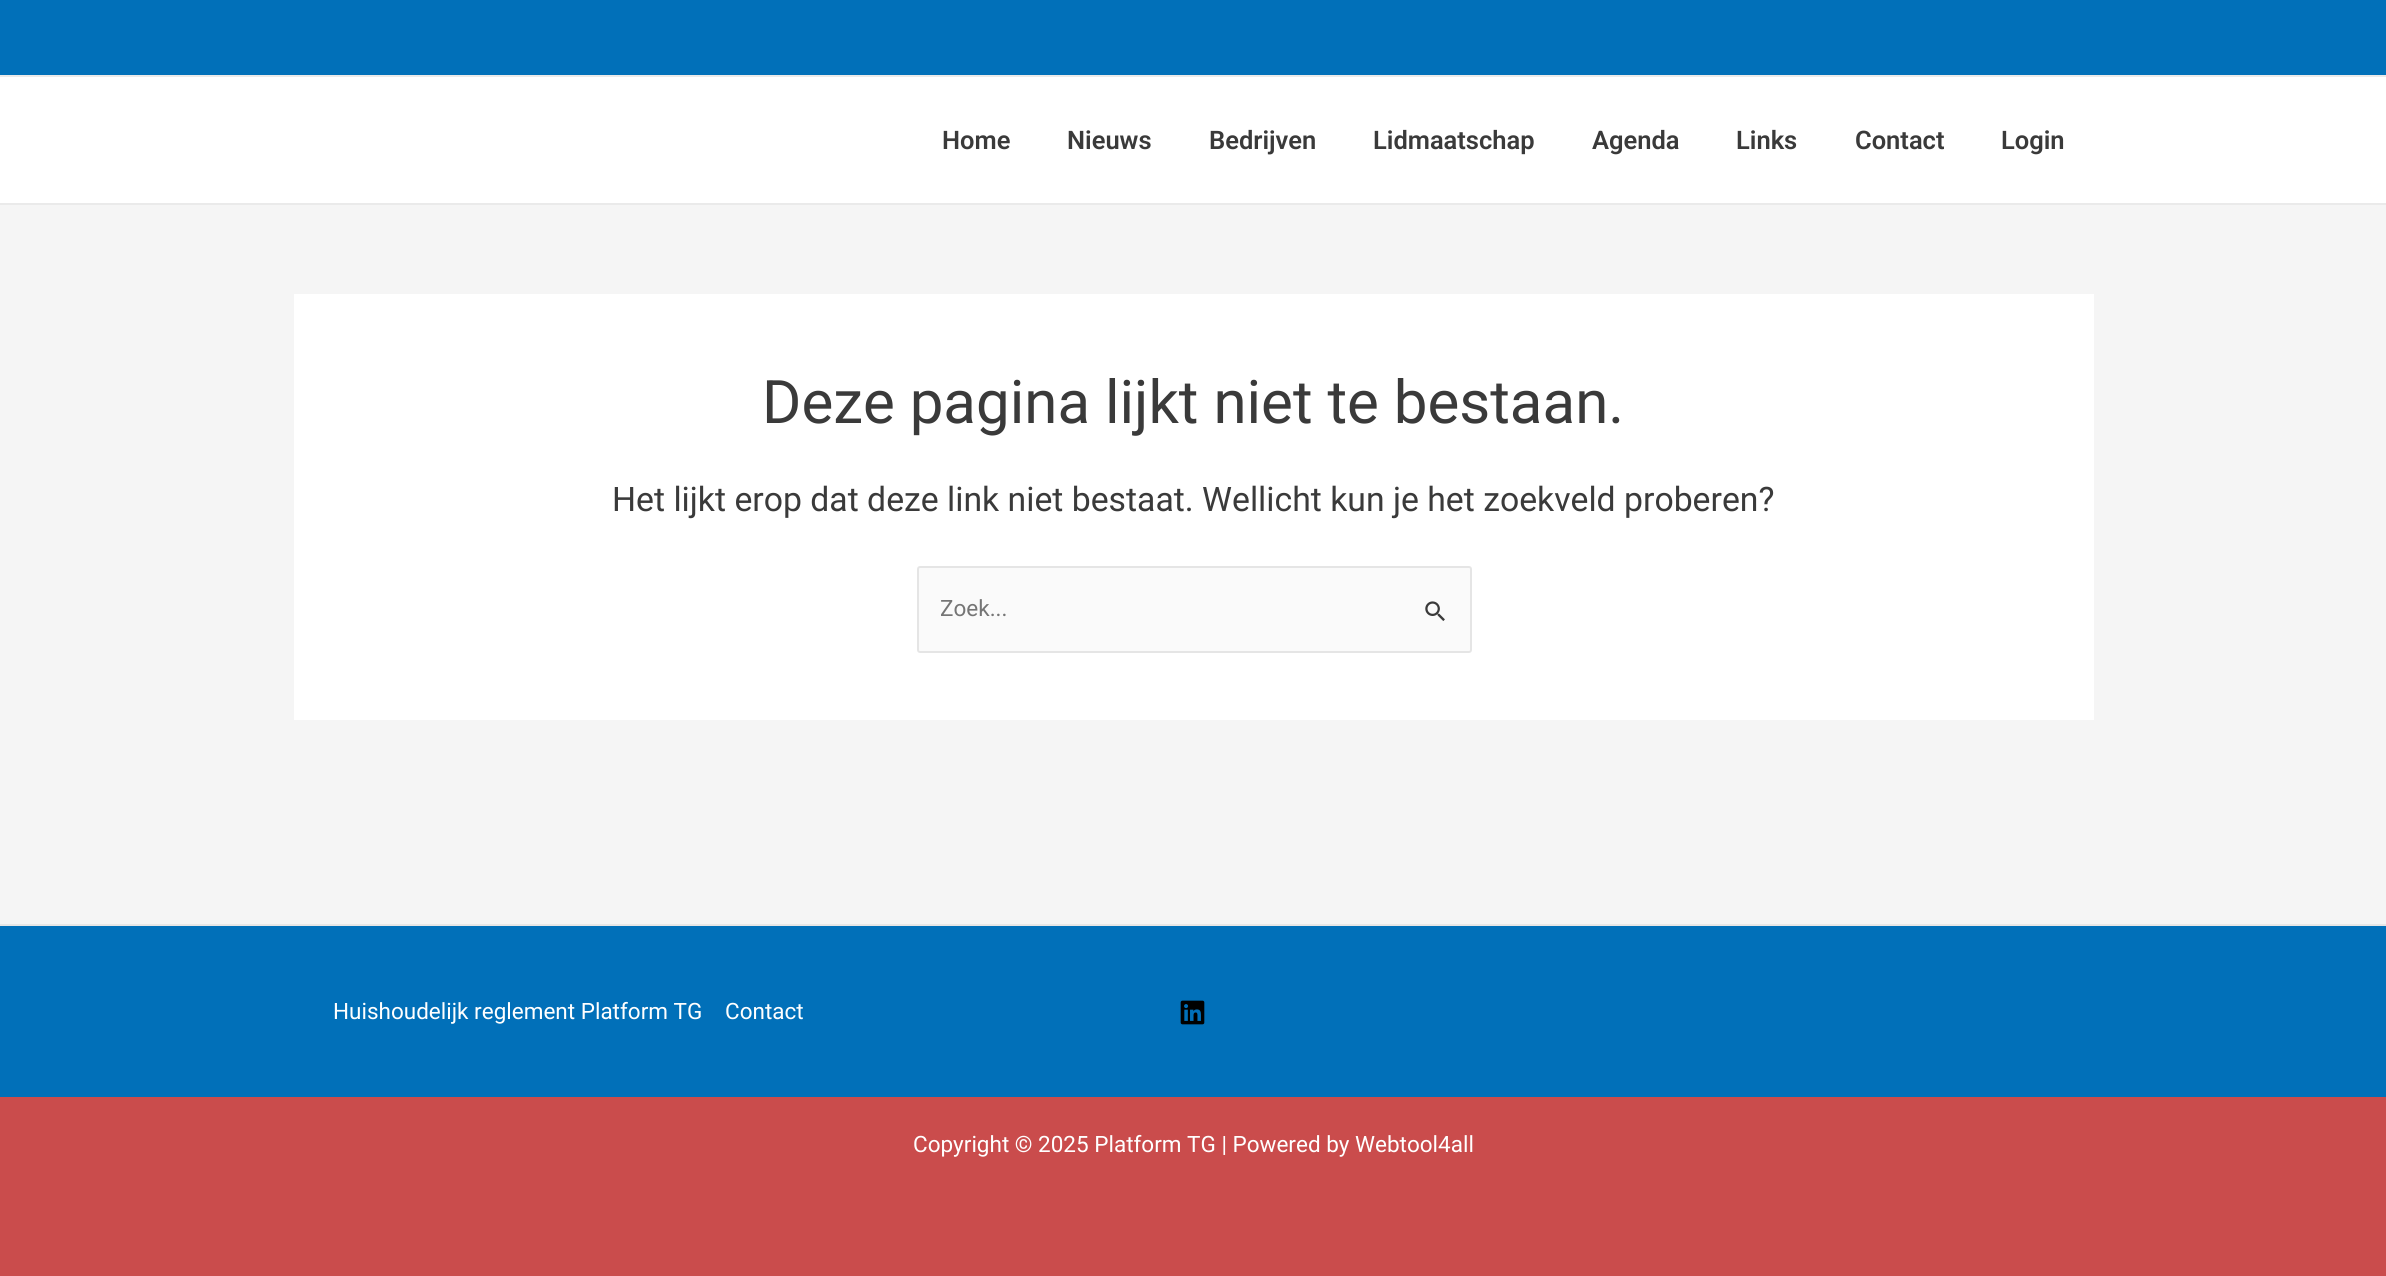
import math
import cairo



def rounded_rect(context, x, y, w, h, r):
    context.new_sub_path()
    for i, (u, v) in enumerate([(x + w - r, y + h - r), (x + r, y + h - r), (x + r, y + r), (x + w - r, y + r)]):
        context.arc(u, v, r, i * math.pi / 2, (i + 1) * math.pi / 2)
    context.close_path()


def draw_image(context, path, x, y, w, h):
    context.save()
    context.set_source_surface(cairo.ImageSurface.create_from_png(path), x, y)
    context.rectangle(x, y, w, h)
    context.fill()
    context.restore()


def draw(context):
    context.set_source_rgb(245 / 255, 245 / 255, 245 / 255)
    context.paint()
    context.set_source_rgb(1 / 255, 112 / 255, 185 / 255)
    context.rectangle(0, 0, 2386, 75)
    context.fill()
    context.set_source_rgb(234 / 255, 234 / 255, 234 / 255)
    context.rectangle(0, 75, 2386, 2)
    context.fill()
    context.set_source_rgb(1, 1, 1)
    context.rectangle(0, 77, 2386, 126)
    context.fill()
    context.set_source_rgb(234 / 255, 234 / 255, 234 / 255)
    context.rectangle(0, 203, 2386, 2)
    context.fill()
    context.set_source_rgb(1, 1, 1)
    context.rectangle(294, 294, 1800, 426)
    context.fill()
    context.set_source_rgb(250 / 255, 250 / 255, 250 / 255)
    rounded_rect(context, 918, 567, 553, 85, 2)
    context.fill_preserve()
    context.set_source_rgb(229 / 255, 229 / 255, 229 / 255)
    context.stroke()
    draw_image(context, "images/1.png", 1425, 601, 20, 20)
    context.set_source_rgb(1 / 255, 112 / 255, 185 / 255)
    context.rectangle(0, 926, 2386, 171)
    context.fill()
    context.set_source_rgb(230 / 255, 230 / 255, 230 / 255)
    context.rectangle(0, 924, 2386, 2)
    context.fill()
    draw_image(context, "images/2.png", 1180, 1000, 25, 25)
    context.set_source_rgb(202 / 255, 76 / 255, 76 / 255)
    context.rectangle(0, 1097, 2386, 179)
    context.fill()
    context.select_font_face("Roboto SemiBold")
    context.set_font_size(25.5)
    context.set_source_rgb(58 / 255, 58 / 255, 58 / 255)
    context.move_to(942, 149)
    context.show_text("Home")
    context.move_to(1067, 149)
    context.show_text("Nieuws")
    context.move_to(1209, 149)
    context.show_text("Bedrijven")
    context.move_to(1373, 149)
    context.show_text("Lidmaatschap")
    context.move_to(1592, 149)
    context.show_text("Agenda")
    context.move_to(1736, 149)
    context.show_text("Links")
    context.move_to(1855, 149)
    context.show_text("Contact")
    context.move_to(2001, 149)
    context.show_text("Login")
    context.select_font_face("Roboto")
    context.set_font_size(60)
    context.move_to(762, 423)
    context.show_text("Deze pagina lijkt niet te bestaan.")
    context.set_font_size(33.75)
    context.move_to(612, 511)
    context.show_text("Het lijkt erop dat deze link niet bestaat. Wellicht kun je het zoekveld proberen?")
    context.save()
    context.rectangle(941, 596, 456, 27)
    context.clip()
    context.set_font_size(22.5)
    context.set_source_rgb(117 / 255, 117 / 255, 117 / 255)
    context.move_to(940, 616)
    context.show_text("Zoek...")
    context.restore()
    context.set_font_size(22.5)
    context.set_source_rgb(1, 1, 1)
    context.move_to(333, 1019)
    context.show_text("Huishoudelijk reglement Platform TG")
    context.move_to(725, 1019)
    context.show_text("Contact")
    context.move_to(913, 1152)
    context.show_text("Copyright © 2025 Platform TG | Powered by Webtool4all")


surface = cairo.ImageSurface(cairo.Format.RGB24, 2386, 1276)
context = cairo.Context(surface)
options = cairo.FontOptions()
options.set_hint_metrics(cairo.HintMetrics.OFF)
options.set_hint_style(cairo.HintStyle.NONE)
context.set_font_options(options)
context.set_miter_limit(4)
draw(context)
surface.write_to_png("out.png")
